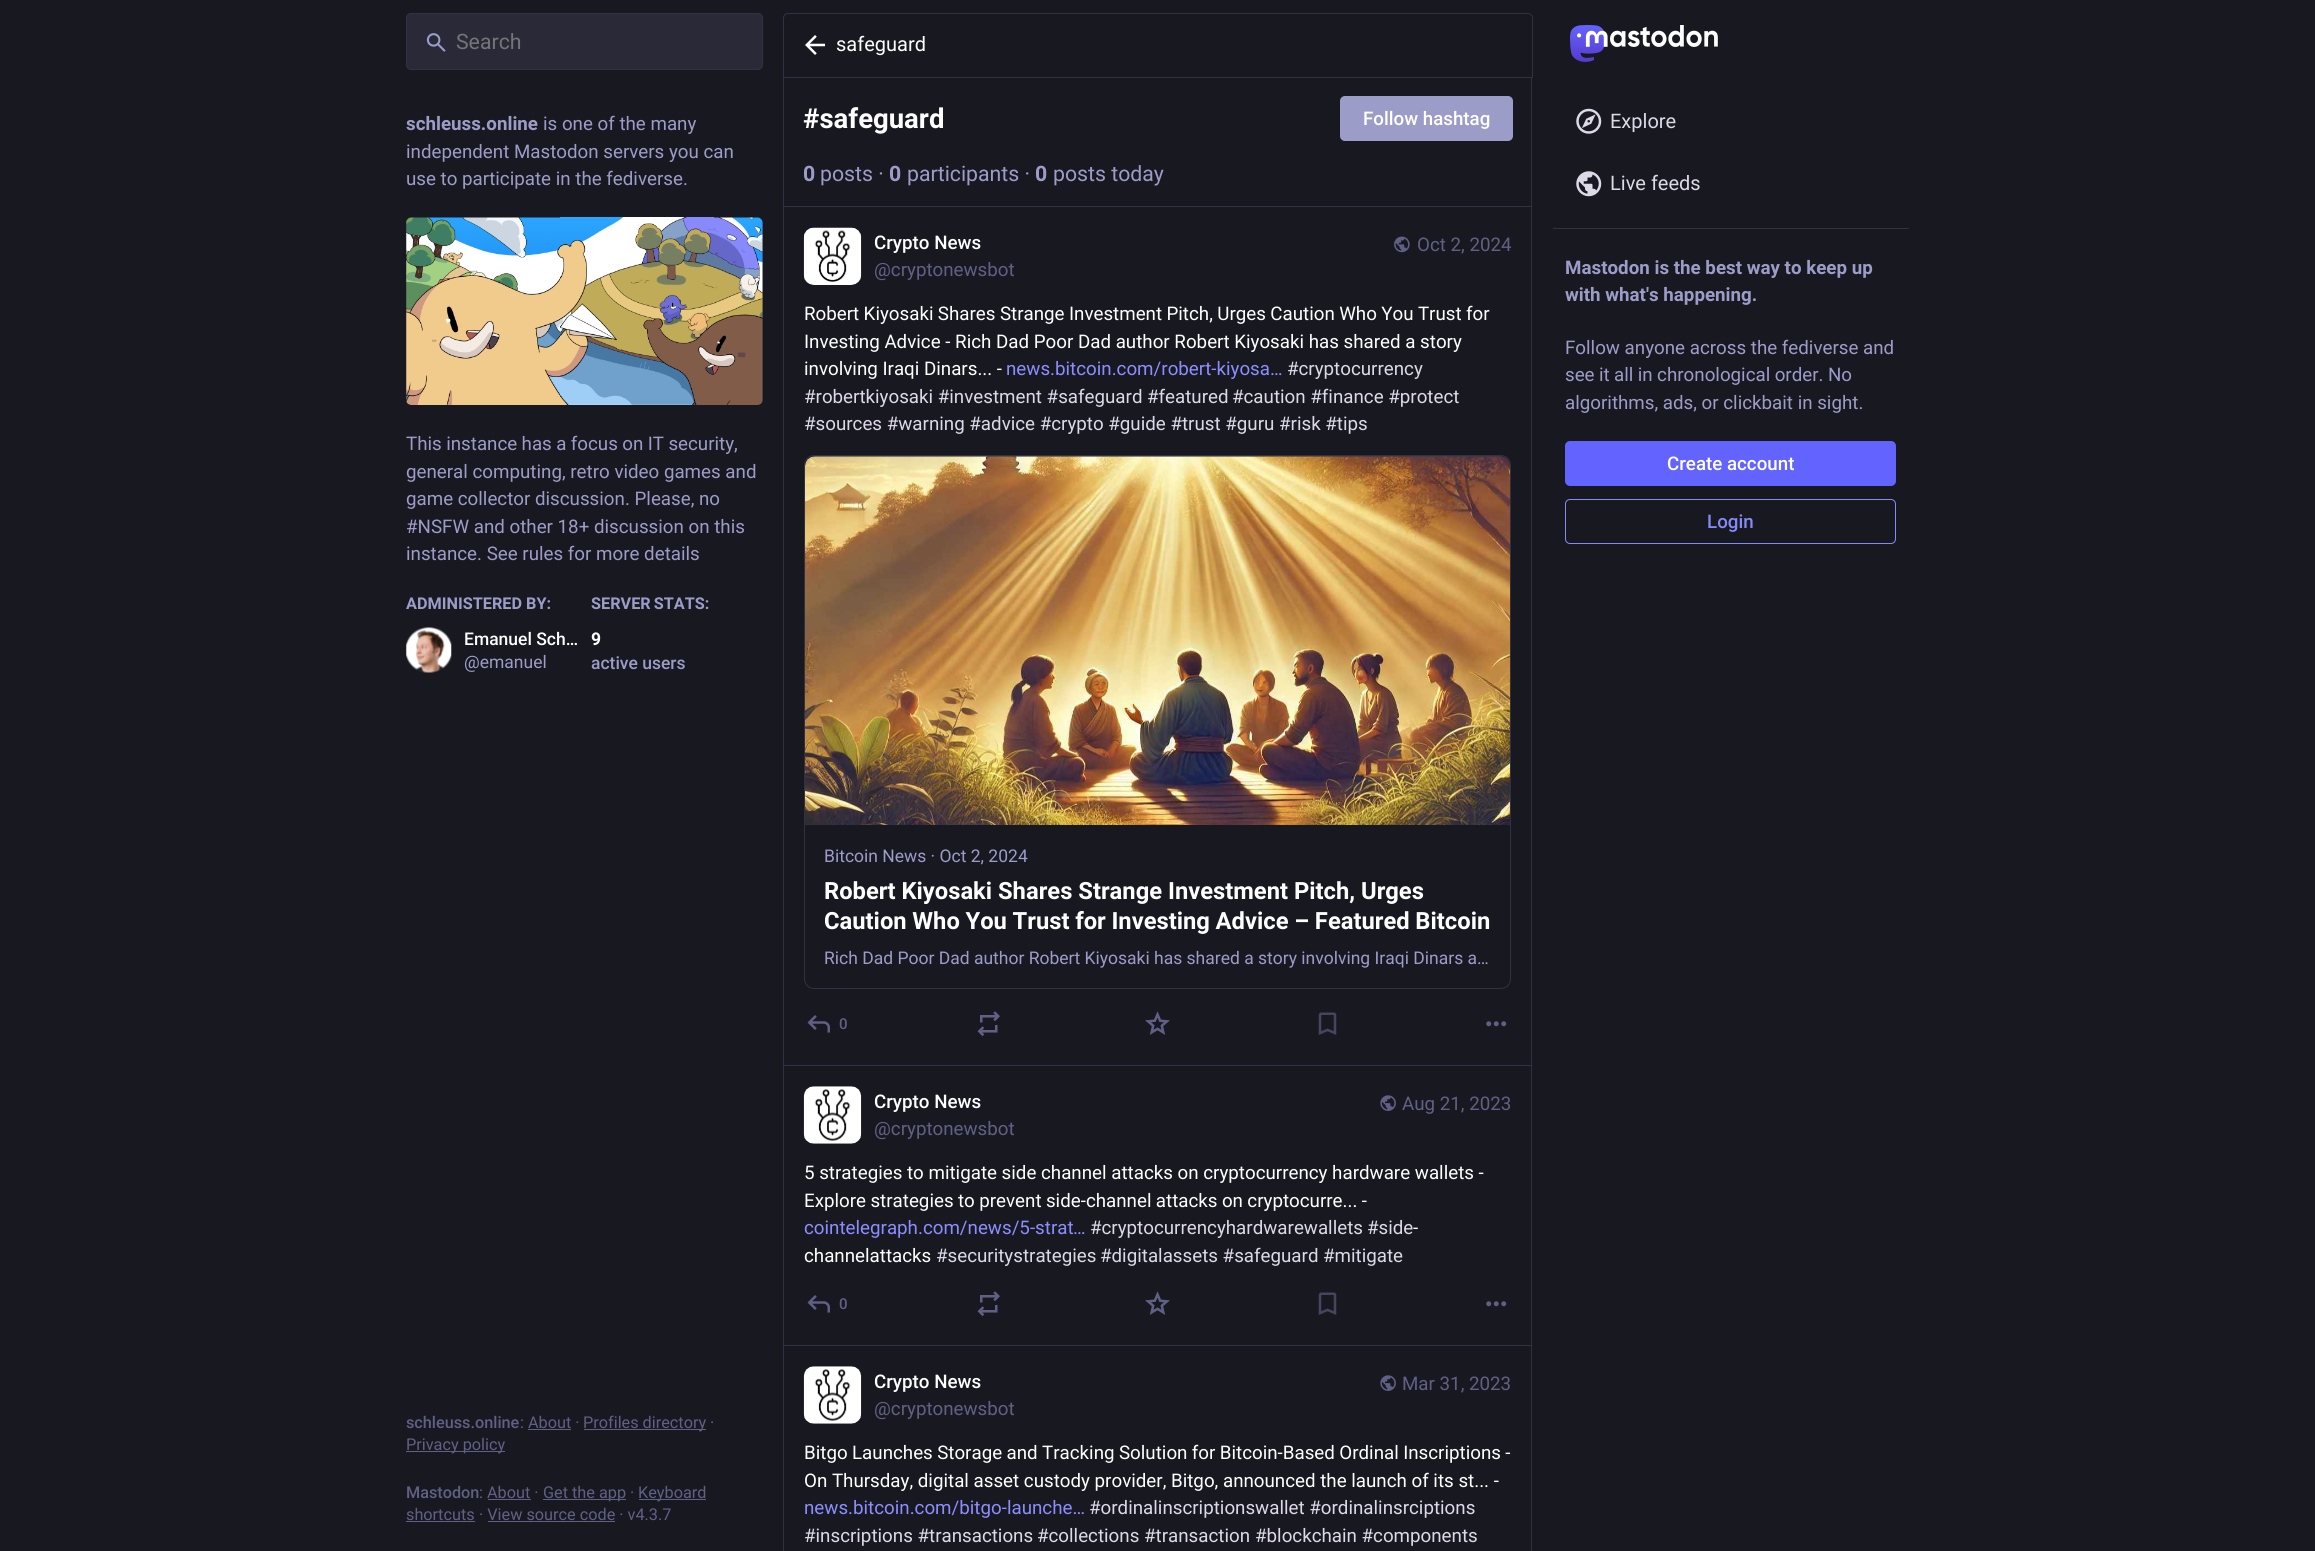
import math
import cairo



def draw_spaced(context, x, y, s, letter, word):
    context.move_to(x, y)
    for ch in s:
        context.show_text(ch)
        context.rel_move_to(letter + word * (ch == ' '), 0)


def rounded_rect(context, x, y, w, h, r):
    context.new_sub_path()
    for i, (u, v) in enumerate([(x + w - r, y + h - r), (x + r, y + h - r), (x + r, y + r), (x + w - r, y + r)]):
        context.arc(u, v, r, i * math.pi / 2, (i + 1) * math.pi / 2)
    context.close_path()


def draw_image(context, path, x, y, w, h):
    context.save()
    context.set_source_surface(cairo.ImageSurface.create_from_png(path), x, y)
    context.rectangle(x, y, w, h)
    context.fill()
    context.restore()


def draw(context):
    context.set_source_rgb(24 / 255, 24 / 255, 33 / 255)
    context.paint()
    context.set_source_rgb(41 / 255, 41 / 255, 56 / 255)
    rounded_rect(context, 406.5, 13.5, 356, 56, 4.5)
    context.fill_preserve()
    context.set_source_rgb(49 / 255, 49 / 255, 68 / 255)
    context.set_line_width(1)
    context.stroke()
    draw_image(context, "images/1.png", 426, 33, 20, 19)
    context.set_source_rgb(41 / 255, 41 / 255, 56 / 255)
    rounded_rect(context, 406, 218, 357, 187, 5)
    context.fill()
    draw_image(context, "images/2.png", 406, 217, 357, 188)
    draw_image(context, "images/3.png", 406, 627, 46, 46)
    context.set_source_rgb(96 / 255, 96 / 255, 133 / 255)
    context.rectangle(584, 1429, 122, 1)
    context.fill()
    context.rectangle(528, 1429, 43, 1)
    context.fill()
    context.rectangle(406, 1451, 99, 1)
    context.fill()
    context.rectangle(543, 1499, 83, 1)
    context.fill()
    context.rectangle(639, 1499, 67, 1)
    context.fill()
    context.rectangle(488, 1499, 43, 1)
    context.fill()
    context.rectangle(406, 1521, 69, 1)
    context.fill()
    context.rectangle(488, 1521, 127, 1)
    context.fill()
    context.new_path()
    context.move_to(788, 13.5)
    context.line_to(1528, 13.5)
    context.curve_to(1530.5, 13.5, 1532.5, 15.5, 1532.5, 18)
    context.line_to(1532.5, 77.5)
    context.line_to(783.5, 77.5)
    context.line_to(783.5, 18)
    context.curve_to(783.5, 15.5, 785.5, 13.5, 788, 13.5)
    context.close_path()
    context.set_source_rgb(49 / 255, 49 / 255, 68 / 255)
    context.stroke()
    draw_image(context, "images/4.png", 805, 35, 20, 20)
    context.save()
    context.rectangle(783, 78, 750, 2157)
    context.clip()
    context.set_fill_rule(cairo.FillRule.EVEN_ODD)
    context.new_path()
    context.move_to(782, 78)
    context.line_to(1532, 78)
    context.line_to(1532, 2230)
    context.curve_to(1532, 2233, 1530, 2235, 1528, 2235)
    context.line_to(788, 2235)
    context.curve_to(785, 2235, 782, 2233, 782, 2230)
    context.close_path()
    context.move_to(784, 78)
    context.line_to(1531, 78)
    context.line_to(1531, 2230)
    context.curve_to(1531, 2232, 1530, 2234, 1528, 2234)
    context.line_to(788, 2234)
    context.curve_to(785, 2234, 784, 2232, 784, 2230)
    context.close_path()
    context.fill()
    context.restore()
    context.rectangle(784, 206, 747, 1)
    context.fill()
    context.set_source_rgb(156 / 255, 156 / 255, 201 / 255)
    rounded_rect(context, 1340, 96, 173, 45, 5)
    context.fill()
    context.set_source_rgb(49 / 255, 49 / 255, 68 / 255)
    context.rectangle(784, 1065, 747, 1)
    context.fill()
    draw_image(context, "images/5.png", 803, 227, 59, 58)
    draw_image(context, "images/6.png", 1394, 236, 16, 17)
    rounded_rect(context, 804.5, 455.5, 706, 533, 9.5)
    context.stroke()
    context.save()
    rounded_rect(context, 805, 456, 705, 532, 9)
    context.clip()
    context.set_source_rgb(58 / 255, 58 / 255, 80 / 255)
    context.new_path()
    context.move_to(815, 456)
    context.line_to(1500, 456)
    context.curve_to(1505.5, 456, 1510, 460.5, 1510, 466)
    context.line_to(1510, 825)
    context.line_to(805, 825)
    context.line_to(805, 466)
    context.curve_to(805, 460.5, 809.5, 456, 815, 456)
    context.close_path()
    context.fill()
    context.restore()
    draw_image(context, "images/7.png", 805, 456, 705, 369)
    draw_image(context, "images/8.png", 807, 1015, 23, 18)
    draw_image(context, "images/9.png", 977, 1011, 23, 26)
    draw_image(context, "images/10.png", 1145, 1011, 25, 24)
    draw_image(context, "images/11.png", 1318, 1012, 19, 23)
    draw_image(context, "images/12.png", 1486, 1021, 21, 6)
    context.rectangle(784, 1345, 747, 1)
    context.fill()
    draw_image(context, "images/13.png", 803, 1086, 59, 58)
    draw_image(context, "images/14.png", 1380, 1095, 16, 16)
    draw_image(context, "images/8.png", 807, 1295, 23, 18)
    draw_image(context, "images/9.png", 977, 1291, 23, 26)
    draw_image(context, "images/10.png", 1145, 1291, 25, 24)
    draw_image(context, "images/11.png", 1318, 1292, 19, 23)
    draw_image(context, "images/12.png", 1486, 1301, 21, 6)
    draw_image(context, "images/13.png", 803, 1366, 59, 58)
    draw_image(context, "images/14.png", 1380, 1375, 16, 16)
    draw_image(context, "images/15.png", 1570, 25, 148, 37)
    draw_image(context, "images/16.png", 1576, 108, 26, 26)
    draw_image(context, "images/17.png", 1576, 171, 26, 26)
    context.rectangle(1553, 228, 356, 1)
    context.fill()
    context.set_source_rgb(99 / 255, 100 / 255, 1)
    rounded_rect(context, 1565, 441, 331, 45, 5)
    context.fill()
    rounded_rect(context, 1565.5, 499.5, 330, 44, 4.5)
    context.set_source_rgb(133 / 255, 138 / 255, 250 / 255)
    context.stroke()
    context.select_font_face("Roboto")
    context.set_font_size(21.25)
    context.set_source_rgb(117 / 255, 117 / 255, 117 / 255)
    context.move_to(456, 49)
    context.show_text("Search")
    context.select_font_face("Roboto", cairo.FontSlant.NORMAL, cairo.FontWeight.BOLD)
    context.set_font_size(18.75)
    context.set_source_rgb(156 / 255, 156 / 255, 201 / 255)
    context.move_to(406, 130)
    context.show_text("schleuss.online")
    context.select_font_face("Roboto")
    context.move_to(543, 130)
    context.show_text("is one of the many")
    context.move_to(406, 158)
    context.show_text("independent Mastodon servers you can")
    context.move_to(406, 185)
    context.show_text("use to participate in the fediverse.")
    draw_spaced(context, 406, 450, "This instance has a focus on IT security,", 0, -0.25)
    context.move_to(406, 478)
    context.show_text("general computing, retro video games and")
    context.move_to(406, 505)
    context.show_text("game collector discussion. Please, no")
    context.move_to(406, 533)
    context.show_text("#NSFW and other 18+ discussion on this")
    context.move_to(406, 560)
    context.show_text("instance. See rules for more details")
    context.select_font_face("Roboto", cairo.FontSlant.NORMAL, cairo.FontWeight.BOLD)
    context.set_font_size(16.25)
    context.move_to(406, 609)
    context.show_text("ADMINISTERED BY:")
    context.select_font_face("Roboto Medium")
    context.set_font_size(17.5)
    context.set_source_rgb(1, 1, 1)
    context.move_to(464, 645)
    context.show_text("Emanuel Sch…")
    context.select_font_face("Roboto")
    context.set_source_rgb(156 / 255, 156 / 255, 201 / 255)
    context.move_to(464, 668)
    context.show_text("@emanuel")
    context.select_font_face("Roboto", cairo.FontSlant.NORMAL, cairo.FontWeight.BOLD)
    context.set_font_size(16.25)
    draw_spaced(context, 591, 609, "SERVER STATS:", 0, -1)
    context.set_font_size(17.5)
    context.set_source_rgb(1, 1, 1)
    context.move_to(591, 645)
    context.show_text("9")
    context.select_font_face("Roboto Medium")
    context.set_source_rgb(156 / 255, 156 / 255, 201 / 255)
    context.move_to(591, 669)
    context.show_text("active users")
    context.set_font_size(16.25)
    context.set_source_rgb(96 / 255, 96 / 255, 133 / 255)
    context.move_to(406, 1428)
    context.show_text("schleuss.online")
    context.select_font_face("Roboto")
    context.move_to(520, 1428)
    context.show_text(": About ·")
    context.move_to(583, 1428)
    context.show_text("Profiles directory")
    context.move_to(710, 1428)
    context.show_text("·")
    context.move_to(406, 1450)
    context.show_text("Privacy policy")
    context.select_font_face("Roboto Medium")
    context.move_to(406, 1498)
    context.show_text("Mastodon")
    context.select_font_face("Roboto")
    context.move_to(479, 1498)
    context.show_text(": About ·")
    context.move_to(543, 1498)
    context.show_text("Get the app ·")
    context.move_to(638, 1498)
    context.show_text("Keyboard")
    context.move_to(406, 1520)
    context.show_text("shortcuts")
    context.move_to(479, 1520)
    context.show_text("· View source code · v4.3.7")
    context.set_font_size(20)
    context.set_source_rgb(1, 1, 1)
    context.move_to(836, 51)
    context.show_text("safeguard")
    context.select_font_face("Roboto", cairo.FontSlant.NORMAL, cairo.FontWeight.BOLD)
    context.set_font_size(27.5)
    context.move_to(803, 128)
    context.show_text("#safeguard")
    context.select_font_face("Roboto Medium")
    context.set_font_size(18.75)
    context.move_to(1363, 125)
    context.show_text("Follow hashtag")
    context.select_font_face("Roboto", cairo.FontSlant.NORMAL, cairo.FontWeight.BOLD)
    context.set_font_size(21.25)
    context.set_source_rgb(156 / 255, 156 / 255, 201 / 255)
    context.move_to(803, 181)
    context.show_text("0")
    context.select_font_face("Roboto")
    context.move_to(820, 181)
    context.show_text("posts ·")
    context.select_font_face("Roboto", cairo.FontSlant.NORMAL, cairo.FontWeight.BOLD)
    context.move_to(889, 181)
    context.show_text("0")
    context.select_font_face("Roboto")
    context.move_to(907, 181)
    context.show_text("participants ·")
    context.select_font_face("Roboto", cairo.FontSlant.NORMAL, cairo.FontWeight.BOLD)
    context.move_to(1035, 181)
    context.show_text("0")
    context.select_font_face("Roboto")
    context.move_to(1053, 181)
    context.show_text("posts today")
    context.select_font_face("Roboto Medium")
    context.set_font_size(18.75)
    context.set_source_rgb(1, 1, 1)
    context.move_to(874, 249)
    context.show_text("Crypto News")
    context.select_font_face("Roboto")
    context.set_source_rgb(96 / 255, 96 / 255, 133 / 255)
    context.move_to(874, 276)
    context.show_text("@cryptonewsbot")
    context.move_to(1417, 251)
    context.show_text("Oct 2, 2024")
    context.set_source_rgb(1, 1, 1)
    draw_spaced(context, 804, 320, "Robert Kiyosaki Shares Strange Investment Pitch, Urges Caution Who You Trust for", 0, -0.25)
    context.move_to(804, 348)
    context.show_text("Investing Advice - Rich Dad Poor Dad author Robert Kiyosaki has shared a story")
    context.move_to(804, 375)
    context.show_text("involving Iraqi Dinars... -")
    context.set_source_rgb(140 / 255, 141 / 255, 1)
    context.move_to(1006, 375)
    context.show_text("news.bitcoin.com/robert-kiyosa…")
    context.set_source_rgb(221 / 255, 217 / 255, 232 / 255)
    context.move_to(1287, 375)
    context.show_text("#cryptocurrency")
    context.move_to(804, 403)
    context.show_text("#robertkiyosaki #investment #safeguard")
    context.move_to(1147, 403)
    context.show_text("#featured")
    context.move_to(1232, 403)
    context.show_text("#caution #finance #protect")
    context.move_to(804, 430)
    context.show_text("#sources #warning #advice #crypto #guide #trust #guru #risk #tips")
    context.set_font_size(17.5)
    context.set_source_rgb(156 / 255, 156 / 255, 201 / 255)
    context.move_to(824, 862)
    context.show_text("Bitcoin News · Oct 2, 2024")
    context.select_font_face("Roboto", cairo.FontSlant.NORMAL, cairo.FontWeight.BOLD)
    context.set_font_size(23.75)
    context.set_source_rgb(1, 1, 1)
    context.move_to(824, 899)
    context.show_text("Robert Kiyosaki Shares Strange Investment Pitch, Urges")
    draw_spaced(context, 824, 929, "Caution Who You Trust for Investing Advice – Featured Bitcoin", 0, -0.25)
    context.select_font_face("Roboto")
    context.set_font_size(17.5)
    context.set_source_rgb(156 / 255, 156 / 255, 201 / 255)
    context.move_to(824, 964)
    context.show_text("Rich Dad Poor Dad author Robert Kiyosaki has shared a story involving Iraqi Dinars a…")
    context.select_font_face("Roboto Medium")
    context.set_font_size(15)
    context.set_source_rgb(96 / 255, 96 / 255, 133 / 255)
    context.move_to(839, 1029)
    context.show_text("0")
    context.set_font_size(18.75)
    context.set_source_rgb(1, 1, 1)
    context.move_to(874, 1108)
    context.show_text("Crypto News")
    context.select_font_face("Roboto")
    context.set_source_rgb(96 / 255, 96 / 255, 133 / 255)
    context.move_to(874, 1135)
    context.show_text("@cryptonewsbot")
    context.move_to(1402, 1110)
    context.show_text("Aug 21, 2023")
    context.set_source_rgb(1, 1, 1)
    context.move_to(804, 1179)
    context.show_text("5 strategies to mitigate side channel attacks on cryptocurrency hardware wallets -")
    draw_spaced(context, 804, 1207, "Explore strategies to prevent side-channel attacks on cryptocurre... -", 0, -0.25)
    context.set_source_rgb(140 / 255, 141 / 255, 1)
    context.move_to(804, 1234)
    context.show_text("cointelegraph.com/news/5-strat")
    context.set_source_rgb(221 / 255, 217 / 255, 232 / 255)
    context.move_to(1090, 1234)
    context.show_text("#cryptocurrencyhardwarewallets")
    context.move_to(1367, 1234)
    context.show_text("#side")
    context.set_source_rgb(1, 1, 1)
    context.move_to(1413, 1234)
    context.show_text("-")
    context.set_source_rgb(140 / 255, 141 / 255, 1)
    context.move_to(1073, 1234)
    context.show_text("…")
    context.set_source_rgb(1, 1, 1)
    context.move_to(804, 1262)
    context.show_text("channelattacks")
    context.set_source_rgb(221 / 255, 217 / 255, 232 / 255)
    context.move_to(936, 1262)
    context.show_text("#securitystrategies")
    context.move_to(1100, 1262)
    context.show_text("#digitalassets #safeguard")
    context.move_to(1323, 1262)
    context.show_text("#mitigate")
    context.select_font_face("Roboto Medium")
    context.set_font_size(15)
    context.set_source_rgb(96 / 255, 96 / 255, 133 / 255)
    context.move_to(839, 1309)
    context.show_text("0")
    context.set_font_size(18.75)
    context.set_source_rgb(1, 1, 1)
    context.move_to(874, 1388)
    context.show_text("Crypto News")
    context.select_font_face("Roboto")
    context.set_source_rgb(96 / 255, 96 / 255, 133 / 255)
    context.move_to(874, 1415)
    context.show_text("@cryptonewsbot")
    context.move_to(1402, 1390)
    context.show_text("Mar 31, 2023")
    context.set_source_rgb(1, 1, 1)
    draw_spaced(context, 804, 1459, "Bitgo Launches Storage and Tracking Solution for Bitcoin-Based Ordinal Inscriptions -", 0, -0.25)
    context.move_to(804, 1487)
    context.show_text("On Thursday, digital asset custody provider, Bitgo, announced the launch of its st... -")
    context.set_source_rgb(140 / 255, 141 / 255, 1)
    context.move_to(804, 1514)
    context.show_text("news.bitcoin.com/bitgo-launche…")
    context.set_source_rgb(221 / 255, 217 / 255, 232 / 255)
    context.move_to(1089, 1514)
    context.show_text("#ordinalinscriptionswallet #ordinalinsrciptions")
    context.move_to(804, 1542)
    context.show_text("#inscriptions #transactions")
    context.move_to(1037, 1542)
    context.show_text("#collections #transaction")
    context.move_to(1255, 1542)
    context.show_text("#blockchain #components")
    context.set_font_size(20)
    context.move_to(1610, 128)
    context.show_text("Explore")
    context.move_to(1610, 190)
    context.show_text("Live feeds")
    context.select_font_face("Roboto", cairo.FontSlant.NORMAL, cairo.FontWeight.BOLD)
    context.set_font_size(18.75)
    context.set_source_rgb(156 / 255, 156 / 255, 201 / 255)
    context.move_to(1565, 274)
    context.show_text("Mastodon is the best way to keep up")
    context.move_to(1565, 301)
    context.show_text("with what's happening.")
    context.select_font_face("Roboto")
    context.move_to(1565, 354)
    context.show_text("Follow anyone across the fediverse and")
    draw_spaced(context, 1565, 381, "see it all in chronological order. No", 0, -0.25)
    context.move_to(1565, 409)
    context.show_text("algorithms, ads, or clickbait in sight.")
    context.select_font_face("Roboto Medium")
    context.set_source_rgb(1, 1, 1)
    context.move_to(1667, 470)
    context.show_text("Create account")
    context.set_source_rgb(133 / 255, 138 / 255, 250 / 255)
    context.move_to(1707, 528)
    context.show_text("Login")


surface = cairo.ImageSurface(cairo.Format.RGB24, 2315, 1551)
context = cairo.Context(surface)
options = cairo.FontOptions()
options.set_hint_metrics(cairo.HintMetrics.OFF)
options.set_hint_style(cairo.HintStyle.NONE)
context.set_font_options(options)
context.set_miter_limit(4)
draw(context)
surface.write_to_png("out.png")
